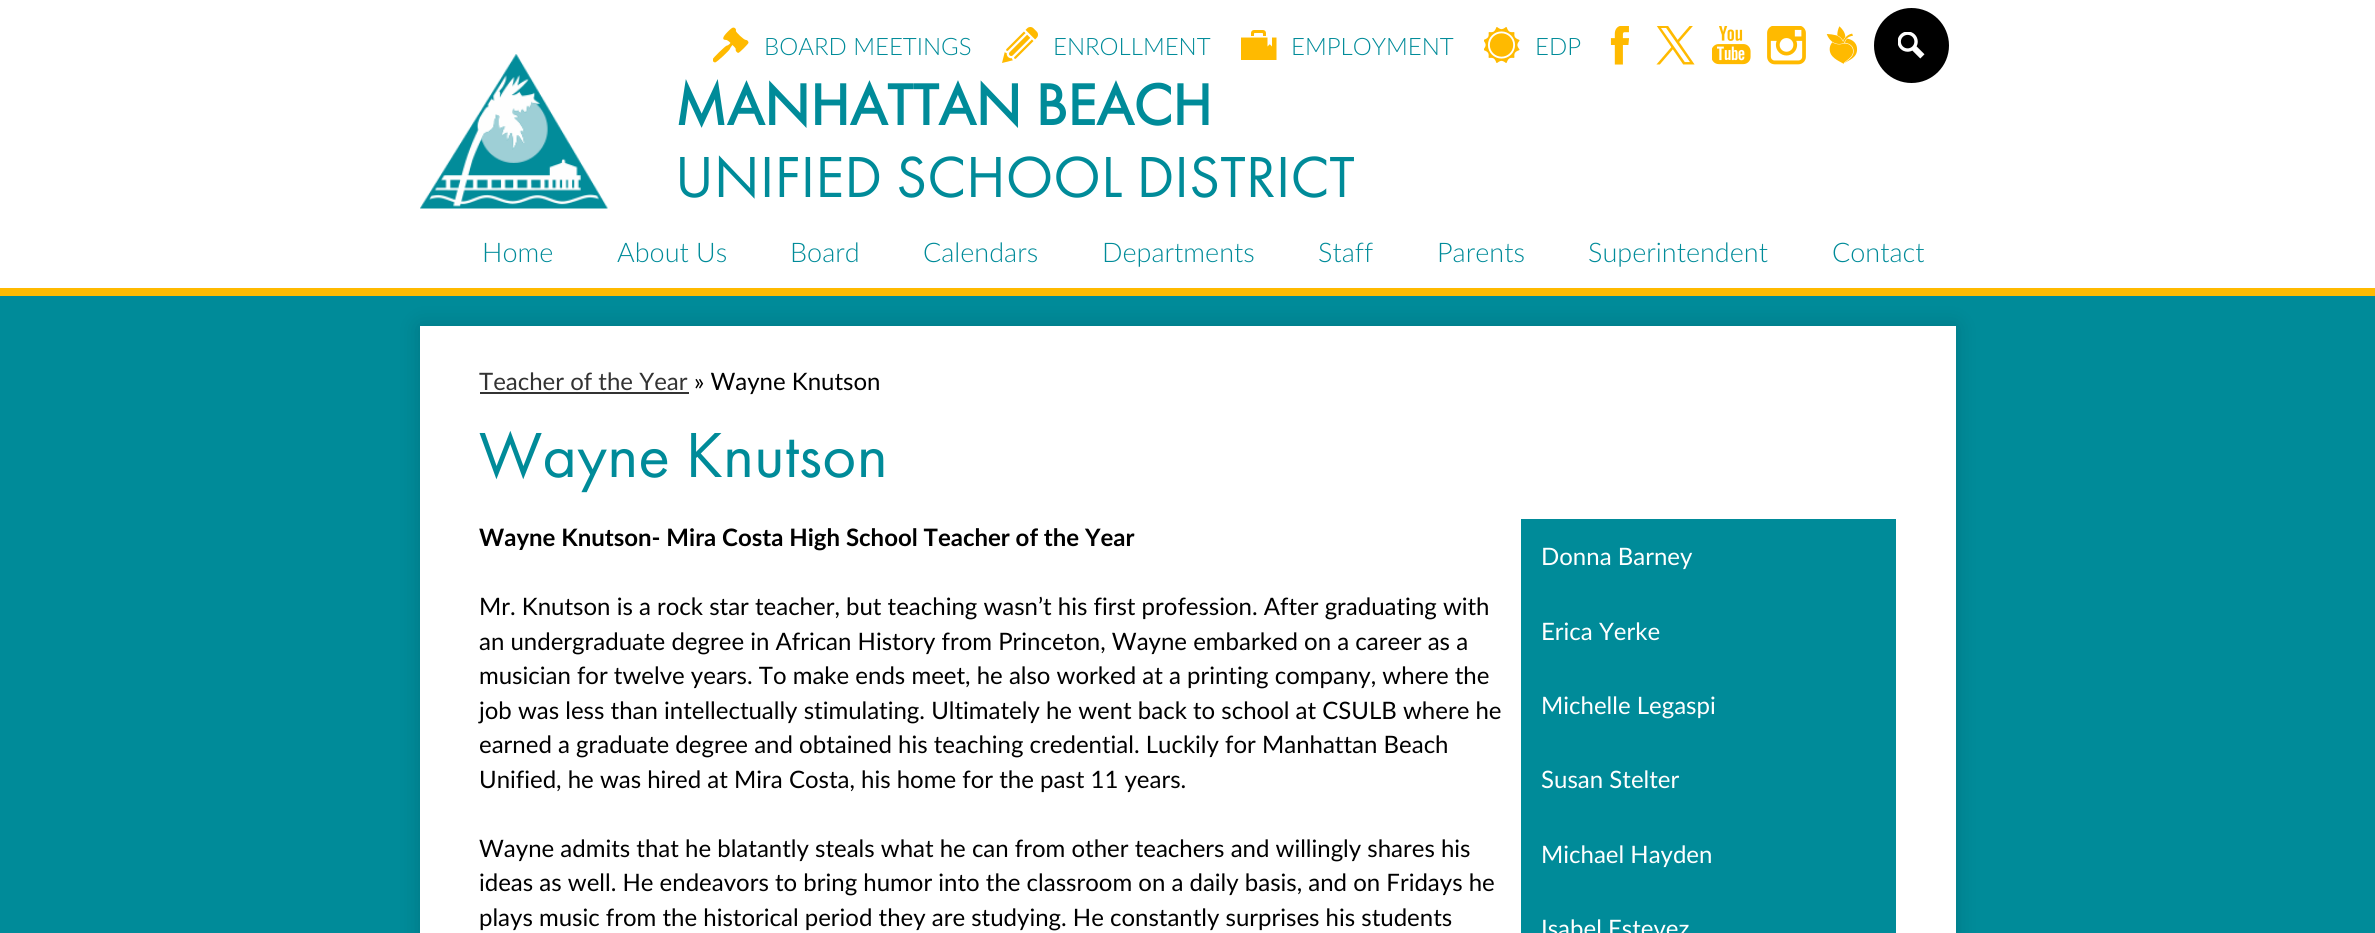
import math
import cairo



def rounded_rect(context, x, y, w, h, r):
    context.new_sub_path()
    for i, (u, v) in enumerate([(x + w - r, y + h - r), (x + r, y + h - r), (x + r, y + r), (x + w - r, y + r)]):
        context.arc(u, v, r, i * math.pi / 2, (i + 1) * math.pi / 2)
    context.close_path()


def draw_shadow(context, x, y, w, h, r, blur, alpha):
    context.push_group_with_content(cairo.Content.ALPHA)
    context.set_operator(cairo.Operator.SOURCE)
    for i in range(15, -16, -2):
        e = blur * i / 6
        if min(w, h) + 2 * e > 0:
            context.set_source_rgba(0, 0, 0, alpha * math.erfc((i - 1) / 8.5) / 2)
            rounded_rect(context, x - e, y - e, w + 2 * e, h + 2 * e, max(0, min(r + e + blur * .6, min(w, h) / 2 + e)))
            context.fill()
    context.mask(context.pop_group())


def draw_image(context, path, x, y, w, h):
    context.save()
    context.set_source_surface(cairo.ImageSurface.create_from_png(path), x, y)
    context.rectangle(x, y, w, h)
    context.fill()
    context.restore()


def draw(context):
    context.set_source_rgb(0, 139 / 255, 153 / 255)
    context.paint()
    context.set_source_rgb(1, 1, 1)
    context.rectangle(0, 0, 2375, 288)
    context.fill()
    context.set_source_rgb(0, 0, 0)
    draw_shadow(context, 420, 326, 1536, 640, 0, 11, 0.15)
    context.set_source_rgb(1, 186 / 255, 0)
    context.rectangle(0, 288, 2375, 8)
    context.fill()
    draw_image(context, "images/1.png", 713, 27, 36, 36)
    draw_image(context, "images/2.png", 1002, 27, 36, 36)
    draw_image(context, "images/3.png", 1241, 30, 36, 30)
    draw_image(context, "images/4.png", 1484, 27, 36, 36)
    draw_image(context, "images/5.png", 1610, 26, 20, 39)
    draw_image(context, "images/6.png", 1656, 26, 39, 39)
    draw_image(context, "images/7.png", 1712, 26, 39, 39)
    draw_image(context, "images/8.png", 1767, 26, 39, 39)
    draw_image(context, "images/9.png", 1826, 26, 32, 38)
    context.set_source_rgb(0, 0, 0)
    context.arc(1911.5, 45.5, 37.5, 0, 2 * math.pi)
    context.fill()
    draw_image(context, "images/10.png", 1898, 32, 27, 27)
    draw_image(context, "images/11.png", 420, 54, 188, 155)
    context.set_source_rgb(1, 1, 1)
    context.rectangle(420, 326, 1536, 607)
    context.fill()
    context.set_source_rgb(51 / 255, 51 / 255, 51 / 255)
    context.rectangle(480, 392, 209, 2)
    context.fill()
    context.set_source_rgb(0, 139 / 255, 153 / 255)
    context.rectangle(1521, 519, 375, 414)
    context.fill()
    context.select_font_face("Lato Light")
    context.set_font_size(24)
    context.move_to(764, 55)
    context.show_text("BOARD MEETINGS")
    context.move_to(1053, 55)
    context.show_text("ENROLLMENT")
    context.move_to(1291, 55)
    context.show_text("EMPLOYMENT")
    context.move_to(1535, 55)
    context.show_text("EDP")
    context.select_font_face("Futura PT", cairo.FontSlant.NORMAL, cairo.FontWeight.BOLD)
    context.set_font_size(60)
    context.move_to(675, 125)
    context.show_text("MANHATTAN BEACH")
    context.select_font_face("Futura PT")
    context.move_to(675, 197)
    context.show_text("UNIFIED SCHOOL DISTRICT")
    context.select_font_face("Lato Light")
    context.set_font_size(27)
    context.move_to(482, 262)
    context.show_text("Home")
    context.move_to(617, 262)
    context.show_text("About Us")
    context.move_to(790, 262)
    context.show_text("Board")
    context.move_to(923, 262)
    context.show_text("Calendars")
    context.move_to(1102, 262)
    context.show_text("Departments")
    context.move_to(1318, 262)
    context.show_text("Staff")
    context.move_to(1437, 262)
    context.show_text("Parents")
    context.move_to(1588, 262)
    context.show_text("Superintendent")
    context.move_to(1832, 262)
    context.show_text("Contact")
    context.select_font_face("Lato")
    context.set_font_size(24)
    context.set_source_rgb(51 / 255, 51 / 255, 51 / 255)
    context.move_to(479, 390)
    context.show_text("Teacher of the Year")
    context.set_source_rgb(0, 0, 0)
    context.move_to(694, 390)
    context.show_text("» Wayne Knutson")
    context.select_font_face("Futura PT")
    context.set_font_size(66)
    context.set_source_rgb(0, 139 / 255, 153 / 255)
    context.move_to(479, 477)
    context.show_text("Wayne Knutson")
    context.select_font_face("Lato", cairo.FontSlant.NORMAL, cairo.FontWeight.BOLD)
    context.set_font_size(24)
    context.set_source_rgb(0, 0, 0)
    context.move_to(479, 546)
    context.show_text("Wayne Knutson- Mira Costa High School Teacher of the Year")
    context.select_font_face("Lato")
    context.move_to(479, 615)
    context.show_text("Mr. Knutson is a rock star teacher, but teaching wasn’t his first profession. After graduating with")
    context.move_to(479, 650)
    context.show_text("an undergraduate degree in African History from Princeton, Wayne embarked on a career as a")
    context.move_to(479, 684)
    context.show_text("musician for twelve years. To make ends meet, he also worked at a printing company, where the")
    context.move_to(479, 719)
    context.show_text("job was less than intellectually stimulating. Ultimately he went back to school at CSULB where he")
    context.move_to(479, 753)
    context.show_text("earned a graduate degree and obtained his teaching credential. Luckily for Manhattan Beach")
    context.move_to(479, 788)
    context.show_text("Unified, he was hired at Mira Costa, his home for the past 11 years.")
    context.move_to(479, 857)
    context.show_text("Wayne admits that he blatantly steals what he can from other teachers and willingly shares his")
    context.move_to(479, 891)
    context.show_text("ideas as well. He endeavors to bring humor into the classroom on a daily basis, and on Fridays he")
    context.move_to(479, 926)
    context.show_text("plays music from the historical period they are studying. He constantly surprises his students")
    context.set_source_rgb(1, 1, 1)
    context.move_to(1541, 565)
    context.show_text("Donna Barney")
    context.move_to(1541, 640)
    context.show_text("Erica Yerke")
    context.move_to(1541, 714)
    context.show_text("Michelle Legaspi")
    context.move_to(1541, 788)
    context.show_text("Susan Stelter")
    context.move_to(1541, 863)
    context.show_text("Michael Hayden")
    context.move_to(1541, 937)
    context.show_text("Isabel Estevez")


surface = cairo.ImageSurface(cairo.Format.RGB24, 2375, 933)
context = cairo.Context(surface)
options = cairo.FontOptions()
options.set_hint_metrics(cairo.HintMetrics.OFF)
options.set_hint_style(cairo.HintStyle.NONE)
context.set_font_options(options)
context.set_miter_limit(4)
draw(context)
surface.write_to_png("out.png")
